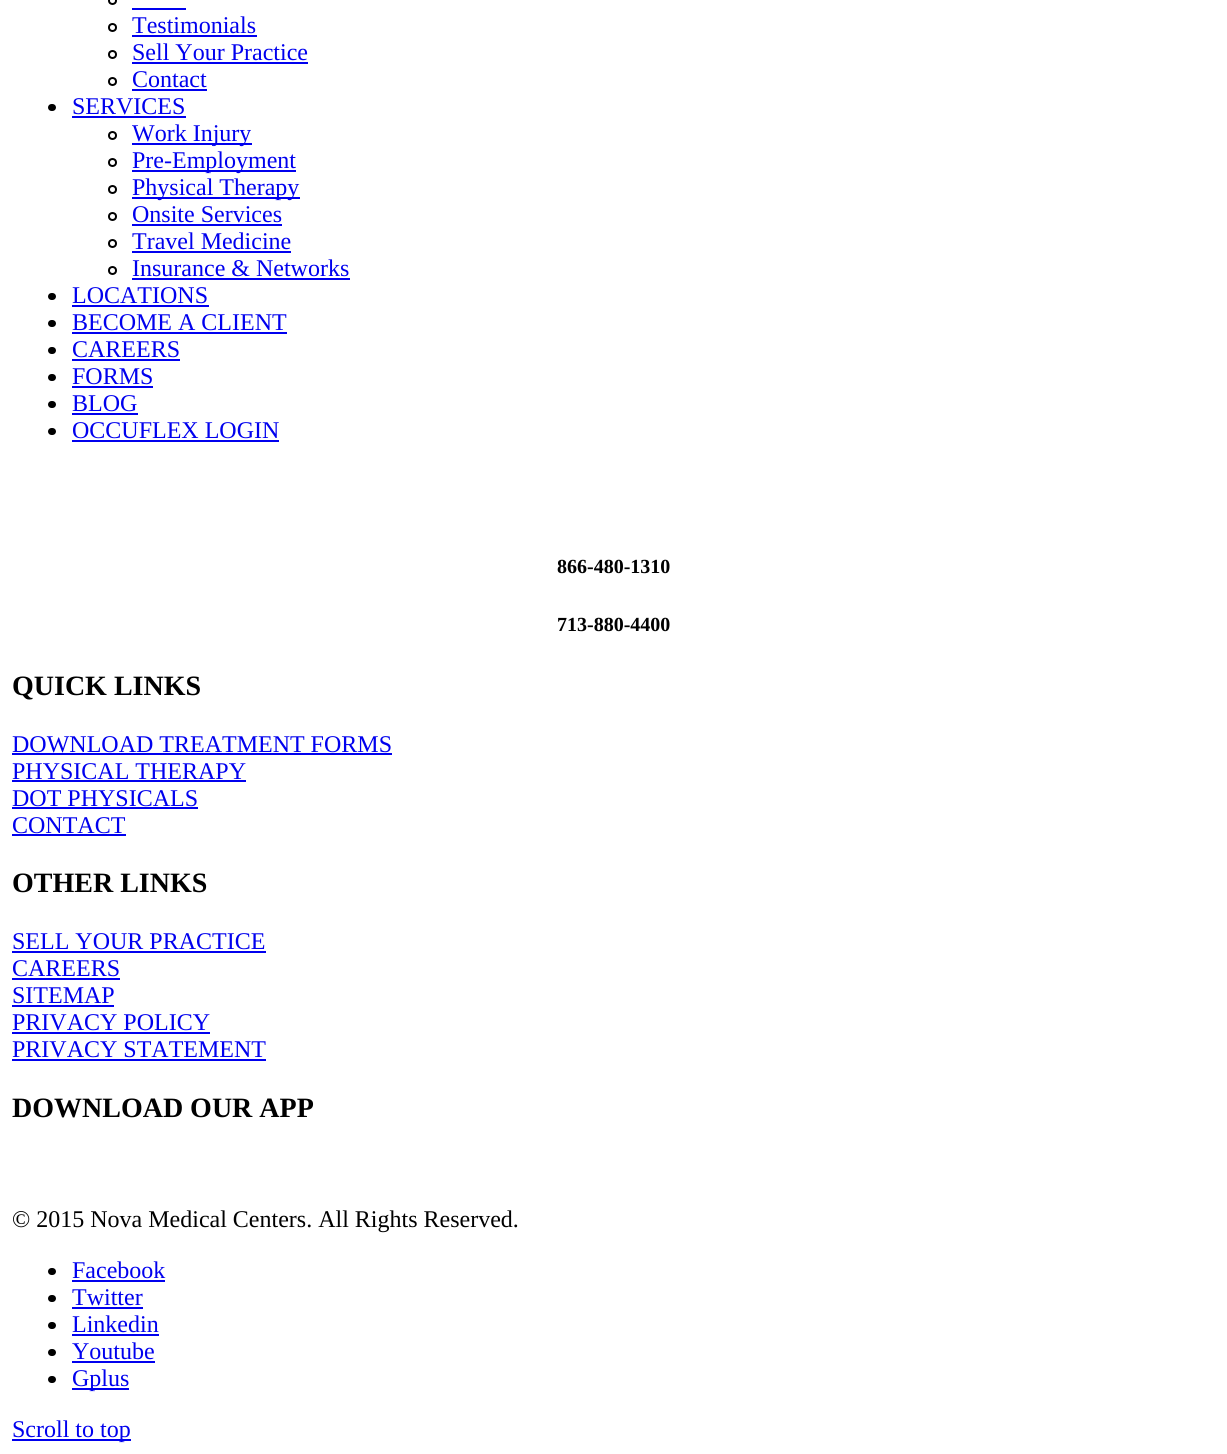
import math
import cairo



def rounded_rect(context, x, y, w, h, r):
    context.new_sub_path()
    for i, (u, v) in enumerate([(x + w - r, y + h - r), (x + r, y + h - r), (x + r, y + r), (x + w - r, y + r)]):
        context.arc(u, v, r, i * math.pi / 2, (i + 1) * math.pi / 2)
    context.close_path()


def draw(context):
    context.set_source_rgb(1, 1, 1)
    context.paint()
    context.arc(112.5, 0.5, 3.5, 0, 2 * math.pi)
    context.set_source_rgb(0, 0, 0)
    context.stroke()
    context.set_source_rgb(0, 0, 238 / 255)
    context.rectangle(132, 8, 54, 2)
    context.fill()
    context.arc(112.5, 27.5, 3.5, 0, 2 * math.pi)
    context.set_source_rgb(0, 0, 0)
    context.stroke()
    context.set_source_rgb(0, 0, 238 / 255)
    context.rectangle(132, 35, 125, 2)
    context.fill()
    context.arc(112.5, 54.5, 3.5, 0, 2 * math.pi)
    context.set_source_rgb(0, 0, 0)
    context.stroke()
    context.set_source_rgb(0, 0, 238 / 255)
    context.rectangle(132, 62, 176, 2)
    context.fill()
    context.arc(112.5, 81.5, 3.5, 0, 2 * math.pi)
    context.set_source_rgb(0, 0, 0)
    context.stroke()
    context.set_source_rgb(0, 0, 238 / 255)
    context.rectangle(132, 89, 75, 2)
    context.fill()
    context.set_source_rgb(0, 0, 0)
    rounded_rect(context, 48, 104, 8, 7, 3.5)
    context.fill()
    context.set_source_rgb(0, 0, 238 / 255)
    context.rectangle(72, 116, 114, 2)
    context.fill()
    context.arc(112.5, 135.5, 3.5, 0, 2 * math.pi)
    context.set_source_rgb(0, 0, 0)
    context.stroke()
    context.set_source_rgb(0, 0, 238 / 255)
    context.rectangle(132, 143, 120, 2)
    context.fill()
    context.arc(112.5, 162.5, 3.5, 0, 2 * math.pi)
    context.set_source_rgb(0, 0, 0)
    context.stroke()
    context.set_source_rgb(0, 0, 238 / 255)
    context.rectangle(132, 170, 164, 2)
    context.fill()
    context.arc(112.5, 189.5, 3.5, 0, 2 * math.pi)
    context.set_source_rgb(0, 0, 0)
    context.stroke()
    context.set_source_rgb(0, 0, 238 / 255)
    context.rectangle(132, 197, 168, 2)
    context.fill()
    context.arc(112.5, 216.5, 3.5, 0, 2 * math.pi)
    context.set_source_rgb(0, 0, 0)
    context.stroke()
    context.set_source_rgb(0, 0, 238 / 255)
    context.rectangle(132, 224, 150, 2)
    context.fill()
    context.arc(112.5, 243.5, 3.5, 0, 2 * math.pi)
    context.set_source_rgb(0, 0, 0)
    context.stroke()
    context.set_source_rgb(0, 0, 238 / 255)
    context.rectangle(132, 251, 159, 2)
    context.fill()
    context.arc(112.5, 270.5, 3.5, 0, 2 * math.pi)
    context.set_source_rgb(0, 0, 0)
    context.stroke()
    context.set_source_rgb(0, 0, 238 / 255)
    context.rectangle(132, 278, 218, 2)
    context.fill()
    context.set_source_rgb(0, 0, 0)
    rounded_rect(context, 48, 293, 8, 7, 3.5)
    context.fill()
    context.set_source_rgb(0, 0, 238 / 255)
    context.rectangle(72, 305, 137, 2)
    context.fill()
    context.set_source_rgb(0, 0, 0)
    rounded_rect(context, 48, 320, 8, 7, 3.5)
    context.fill()
    context.set_source_rgb(0, 0, 238 / 255)
    context.rectangle(72, 332, 215, 2)
    context.fill()
    context.set_source_rgb(0, 0, 0)
    rounded_rect(context, 48, 347, 8, 7, 3.5)
    context.fill()
    context.set_source_rgb(0, 0, 238 / 255)
    context.rectangle(72, 359, 108, 2)
    context.fill()
    context.set_source_rgb(0, 0, 0)
    rounded_rect(context, 48, 374, 8, 7, 3.5)
    context.fill()
    context.set_source_rgb(0, 0, 238 / 255)
    context.rectangle(72, 386, 81, 2)
    context.fill()
    context.set_source_rgb(0, 0, 0)
    rounded_rect(context, 48, 401, 8, 7, 3.5)
    context.fill()
    context.set_source_rgb(0, 0, 238 / 255)
    context.rectangle(72, 413, 66, 2)
    context.fill()
    context.set_source_rgb(0, 0, 0)
    rounded_rect(context, 48, 428, 8, 7, 3.5)
    context.fill()
    context.set_source_rgb(0, 0, 238 / 255)
    context.rectangle(72, 440, 207, 2)
    context.fill()
    context.rectangle(12, 753, 380, 2)
    context.fill()
    context.rectangle(12, 780, 234, 2)
    context.fill()
    context.rectangle(12, 807, 186, 2)
    context.fill()
    context.rectangle(12, 834, 114, 2)
    context.fill()
    context.rectangle(12, 951, 254, 2)
    context.fill()
    context.rectangle(12, 978, 108, 2)
    context.fill()
    context.rectangle(12, 1005, 102, 2)
    context.fill()
    context.rectangle(12, 1032, 198, 2)
    context.fill()
    context.rectangle(12, 1059, 254, 2)
    context.fill()
    context.set_source_rgb(0, 0, 0)
    rounded_rect(context, 48, 1268, 8, 7, 3.5)
    context.fill()
    context.set_source_rgb(0, 0, 238 / 255)
    context.rectangle(72, 1280, 93, 2)
    context.fill()
    context.set_source_rgb(0, 0, 0)
    rounded_rect(context, 48, 1295, 8, 7, 3.5)
    context.fill()
    context.set_source_rgb(0, 0, 238 / 255)
    context.rectangle(72, 1307, 71, 2)
    context.fill()
    context.set_source_rgb(0, 0, 0)
    rounded_rect(context, 48, 1322, 8, 7, 3.5)
    context.fill()
    context.set_source_rgb(0, 0, 238 / 255)
    context.rectangle(72, 1334, 87, 2)
    context.fill()
    context.set_source_rgb(0, 0, 0)
    rounded_rect(context, 48, 1349, 8, 7, 3.5)
    context.fill()
    context.set_source_rgb(0, 0, 238 / 255)
    context.rectangle(72, 1361, 83, 2)
    context.fill()
    context.set_source_rgb(0, 0, 0)
    rounded_rect(context, 48, 1376, 8, 7, 3.5)
    context.fill()
    context.set_source_rgb(0, 0, 238 / 255)
    context.rectangle(72, 1388, 57, 2)
    context.fill()
    context.rectangle(12, 1439, 119, 2)
    context.fill()
    context.select_font_face("Liberation Serif")
    context.set_font_size(24)
    context.move_to(132, 33)
    context.show_text("Testimonials")
    context.move_to(132, 60)
    context.show_text("Sell Your Practice")
    context.move_to(132, 87)
    context.show_text("Contact")
    context.move_to(72, 114)
    context.show_text("SERVICES")
    context.move_to(132, 141)
    context.show_text("Work Injury")
    context.move_to(132, 168)
    context.show_text("Pre-Employment")
    context.move_to(132, 195)
    context.show_text("Physical Therapy")
    context.move_to(132, 222)
    context.show_text("Onsite Services")
    context.move_to(132, 249)
    context.show_text("Travel Medicine")
    context.move_to(132, 276)
    context.show_text("Insurance & Networks")
    context.move_to(72, 303)
    context.show_text("LOCATIONS")
    context.move_to(72, 330)
    context.show_text("BECOME A CLIENT")
    context.move_to(72, 357)
    context.show_text("CAREERS")
    context.move_to(72, 384)
    context.show_text("FORMS")
    context.move_to(72, 411)
    context.show_text("BLOG")
    context.move_to(72, 438)
    context.show_text("OCCUFLEX LOGIN")
    context.select_font_face("Liberation Serif", cairo.FontSlant.NORMAL, cairo.FontWeight.BOLD)
    context.set_font_size(20)
    context.set_source_rgb(0, 0, 0)
    context.move_to(557, 573)
    context.show_text("866-480-1310")
    context.move_to(557, 631)
    context.show_text("713-880-4400")
    context.set_font_size(28)
    context.move_to(12, 695)
    context.show_text("QUICK LINKS")
    context.select_font_face("Liberation Serif")
    context.set_font_size(24)
    context.set_source_rgb(0, 0, 238 / 255)
    context.move_to(12, 752)
    context.show_text("DOWNLOAD TREATMENT FORMS")
    context.move_to(12, 779)
    context.show_text("PHYSICAL THERAPY")
    context.move_to(12, 806)
    context.show_text("DOT PHYSICALS")
    context.move_to(12, 833)
    context.show_text("CONTACT")
    context.select_font_face("Liberation Serif", cairo.FontSlant.NORMAL, cairo.FontWeight.BOLD)
    context.set_font_size(28)
    context.set_source_rgb(0, 0, 0)
    context.move_to(12, 892)
    context.show_text("OTHER LINKS")
    context.select_font_face("Liberation Serif")
    context.set_font_size(24)
    context.set_source_rgb(0, 0, 238 / 255)
    context.move_to(12, 949)
    context.show_text("SELL YOUR PRACTICE")
    context.move_to(12, 976)
    context.show_text("CAREERS")
    context.move_to(12, 1003)
    context.show_text("SITEMAP")
    context.move_to(12, 1030)
    context.show_text("PRIVACY POLICY")
    context.move_to(12, 1057)
    context.show_text("PRIVACY STATEMENT")
    context.select_font_face("Liberation Serif", cairo.FontSlant.NORMAL, cairo.FontWeight.BOLD)
    context.set_font_size(28)
    context.set_source_rgb(0, 0, 0)
    context.move_to(12, 1117)
    context.show_text("DOWNLOAD OUR APP")
    context.select_font_face("Liberation Serif")
    context.set_font_size(24)
    context.move_to(12, 1227)
    context.show_text("© 2015 Nova Medical Centers. All Rights Reserved.")
    context.set_source_rgb(0, 0, 238 / 255)
    context.move_to(72, 1278)
    context.show_text("Facebook")
    context.move_to(72, 1305)
    context.show_text("Twitter")
    context.move_to(72, 1332)
    context.show_text("Linkedin")
    context.move_to(72, 1359)
    context.show_text("Youtube")
    context.move_to(72, 1386)
    context.show_text("Gplus")
    context.move_to(12, 1437)
    context.show_text("Scroll to top")


surface = cairo.ImageSurface(cairo.Format.RGB24, 1227, 1454)
context = cairo.Context(surface)
options = cairo.FontOptions()
options.set_hint_metrics(cairo.HintMetrics.OFF)
options.set_hint_style(cairo.HintStyle.NONE)
context.set_font_options(options)
context.set_miter_limit(4)
draw(context)
surface.write_to_png("out.png")
